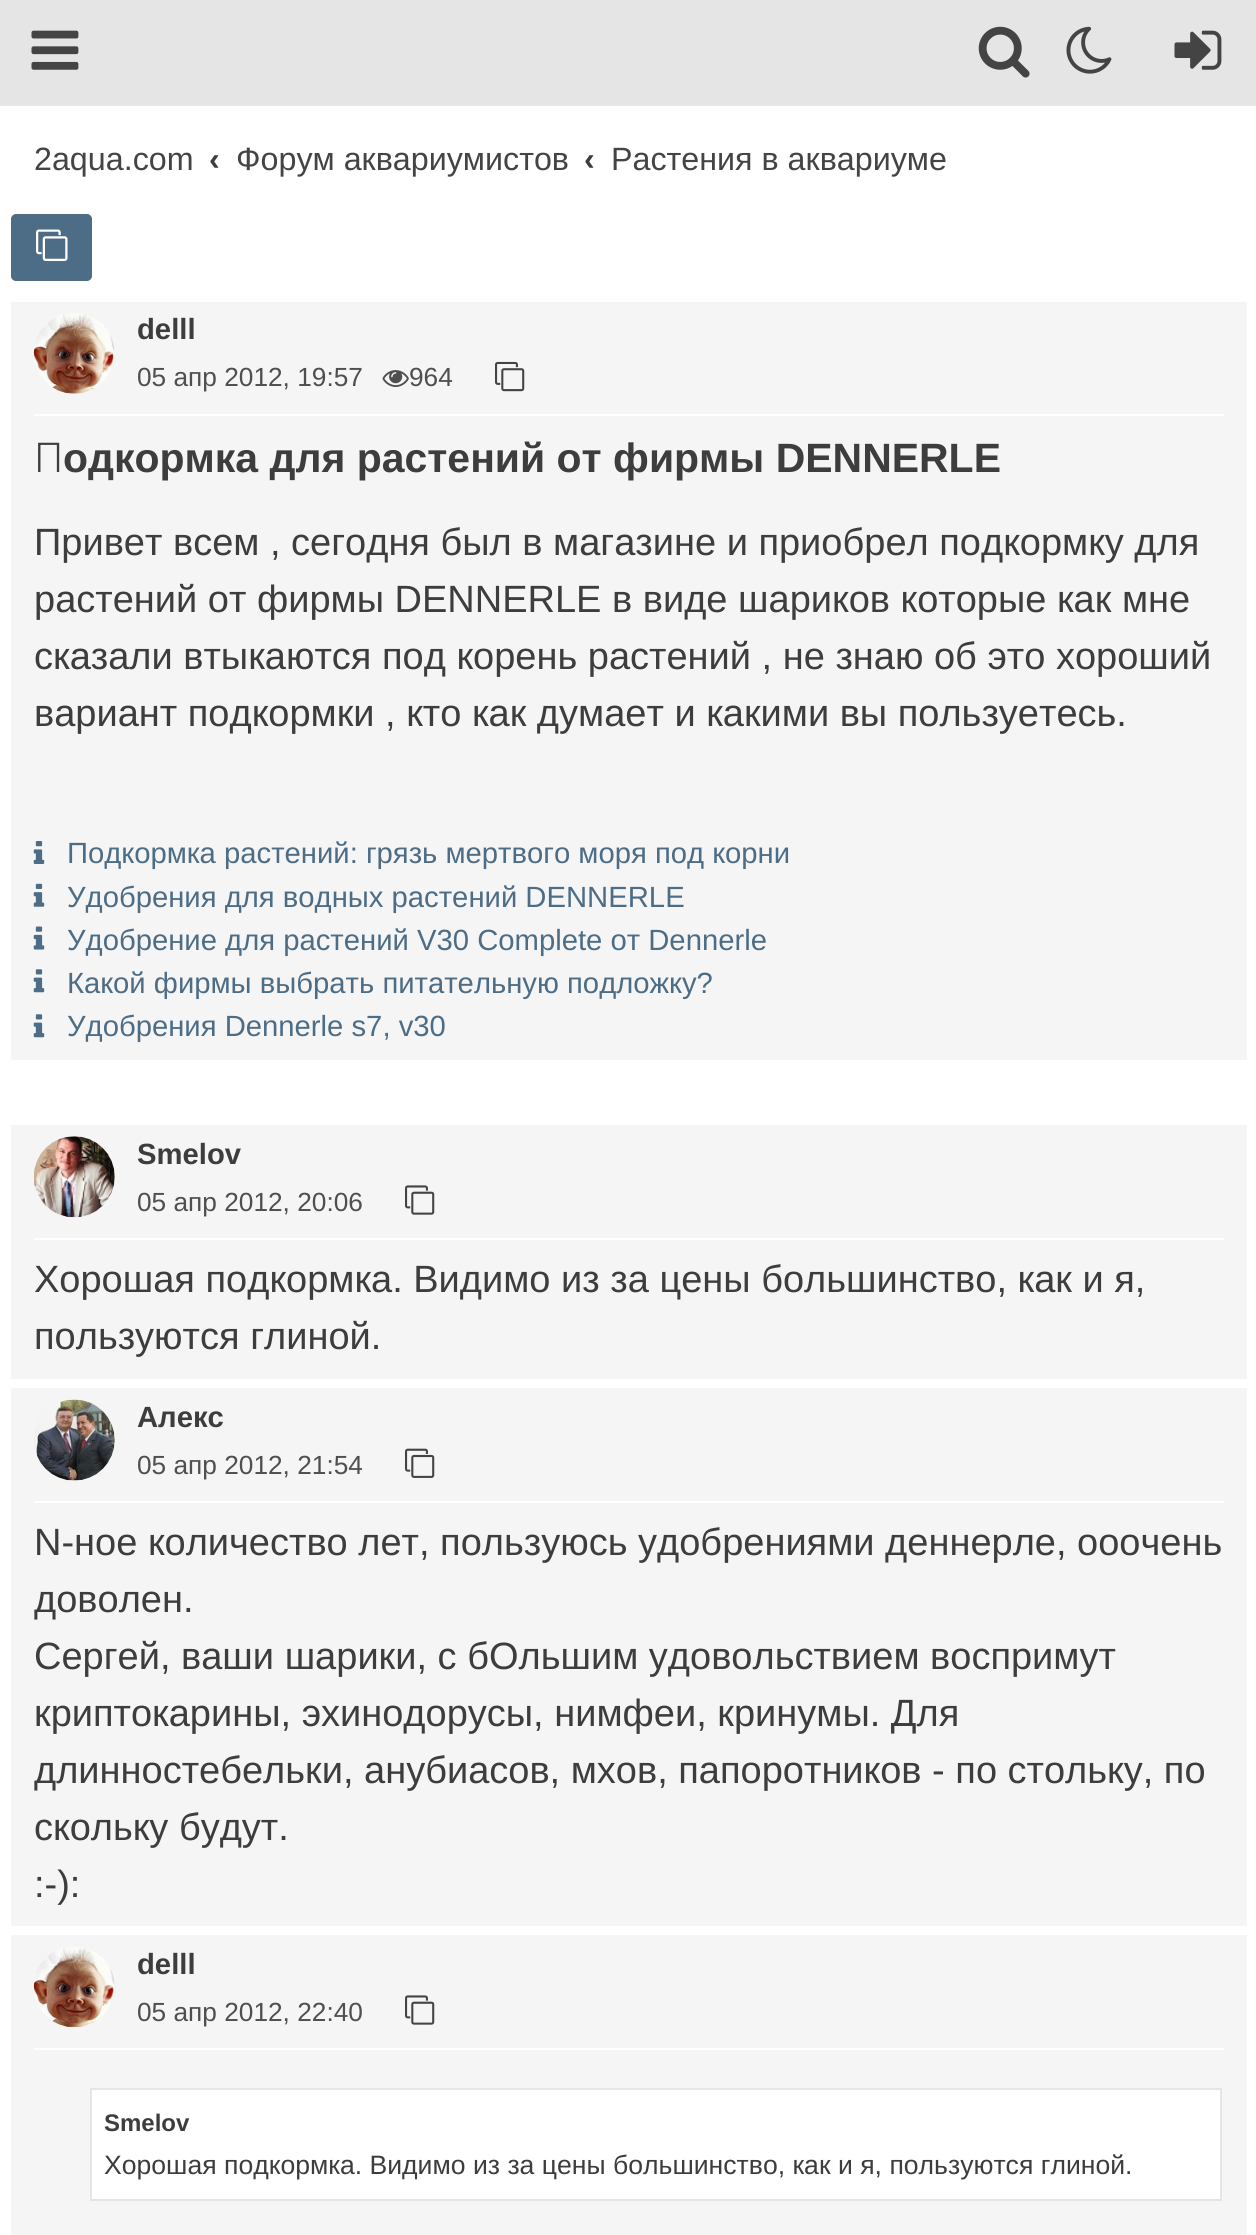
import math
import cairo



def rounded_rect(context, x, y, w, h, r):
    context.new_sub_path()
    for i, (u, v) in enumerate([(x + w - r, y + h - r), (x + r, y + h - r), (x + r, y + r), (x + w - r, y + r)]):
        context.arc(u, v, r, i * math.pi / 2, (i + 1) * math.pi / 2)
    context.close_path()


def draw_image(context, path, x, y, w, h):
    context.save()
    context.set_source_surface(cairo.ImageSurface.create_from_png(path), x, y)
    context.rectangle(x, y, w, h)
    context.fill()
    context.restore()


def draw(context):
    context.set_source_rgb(1, 1, 1)
    context.paint()
    context.set_source_rgb(229 / 255, 229 / 255, 229 / 255)
    context.rectangle(0, 0, 1256, 106)
    context.fill()
    draw_image(context, "images/1.png", 31, 30, 48, 40)
    draw_image(context, "images/2.png", 978, 26, 52, 52)
    draw_image(context, "images/3.png", 1066, 26, 46, 48)
    draw_image(context, "images/4.png", 1174, 30, 48, 40)
    context.set_source_rgb(77 / 255, 109 / 255, 134 / 255)
    rounded_rect(context, 12, 215, 79, 65, 4)
    context.fill_preserve()
    context.stroke()
    draw_image(context, "images/5.png", 36, 229, 32, 32)
    context.set_source_rgb(245 / 255, 245 / 255, 245 / 255)
    context.rectangle(11, 302, 1236, 758)
    context.fill()
    context.set_source_rgb(1, 1, 1)
    context.rectangle(34, 414, 1190, 2)
    context.fill()
    draw_image(context, "images/6.png", 33, 313, 82, 81)
    draw_image(context, "images/7.png", 382, 370, 27, 17)
    draw_image(context, "images/8.png", 495, 361, 30, 31)
    draw_image(context, "images/9.png", 33, 841, 12, 23)
    draw_image(context, "images/10.png", 33, 883, 12, 24)
    draw_image(context, "images/11.png", 33, 926, 12, 24)
    draw_image(context, "images/12.png", 33, 969, 12, 24)
    draw_image(context, "images/12.png", 33, 1014, 12, 24)
    context.set_source_rgb(245 / 255, 245 / 255, 245 / 255)
    context.rectangle(11, 1125, 1236, 254)
    context.fill()
    context.set_source_rgb(1, 1, 1)
    context.rectangle(34, 1238, 1190, 2)
    context.fill()
    draw_image(context, "images/13.png", 33, 1136, 82, 82)
    draw_image(context, "images/14.png", 405, 1185, 30, 30)
    context.set_source_rgb(245 / 255, 245 / 255, 245 / 255)
    context.rectangle(11, 1388, 1236, 538)
    context.fill()
    context.set_source_rgb(1, 1, 1)
    context.rectangle(34, 1501, 1190, 2)
    context.fill()
    draw_image(context, "images/15.png", 34, 1399, 81, 82)
    draw_image(context, "images/16.png", 405, 1448, 30, 30)
    context.set_source_rgb(245 / 255, 245 / 255, 245 / 255)
    context.rectangle(11, 1935, 1236, 300)
    context.fill()
    context.set_source_rgb(1, 1, 1)
    context.rectangle(34, 2048, 1190, 2)
    context.fill()
    draw_image(context, "images/17.png", 33, 1946, 82, 82)
    draw_image(context, "images/14.png", 405, 1995, 30, 30)
    context.rectangle(91, 2089, 1130, 111)
    context.fill_preserve()
    context.set_source_rgb(229 / 255, 229 / 255, 229 / 255)
    context.stroke()
    context.select_font_face("Liberation Sans")
    context.set_font_size(32.25)
    context.set_source_rgb(68 / 255, 68 / 255, 68 / 255)
    context.move_to(34, 170)
    context.show_text("2aqua.com")
    context.select_font_face("Liberation Sans", cairo.FontSlant.NORMAL, cairo.FontWeight.BOLD)
    context.set_source_rgb(61 / 255, 61 / 255, 61 / 255)
    context.move_to(209, 170)
    context.show_text("‹")
    context.select_font_face("Liberation Sans")
    context.set_source_rgb(68 / 255, 68 / 255, 68 / 255)
    context.move_to(236, 170)
    context.show_text("Форум аквариумистов")
    context.select_font_face("Liberation Sans", cairo.FontSlant.NORMAL, cairo.FontWeight.BOLD)
    context.set_source_rgb(61 / 255, 61 / 255, 61 / 255)
    context.move_to(584, 170)
    context.show_text("‹")
    context.select_font_face("Liberation Sans")
    context.set_source_rgb(68 / 255, 68 / 255, 68 / 255)
    context.move_to(611, 170)
    context.show_text("Растения в аквариуме")
    context.select_font_face("Liberation Sans", cairo.FontSlant.NORMAL, cairo.FontWeight.BOLD)
    context.set_font_size(29.25)
    context.set_source_rgb(61 / 255, 61 / 255, 61 / 255)
    context.move_to(137, 339)
    context.show_text("delll")
    context.select_font_face("Liberation Sans")
    context.set_font_size(26.25)
    context.set_source_rgb(79 / 255, 79 / 255, 79 / 255)
    context.move_to(137, 386)
    context.show_text("05 апр 2012, 19:57")
    context.move_to(409, 386)
    context.show_text("964")
    context.select_font_face("Noto Sans Light")
    context.set_font_size(40.95)
    context.set_source_rgb(61 / 255, 61 / 255, 61 / 255)
    context.move_to(34, 472)
    context.show_text("П")
    context.select_font_face("Liberation Sans", cairo.FontSlant.NORMAL, cairo.FontWeight.BOLD)
    context.move_to(63, 472)
    context.show_text("одкормка для растений от фирмы DENNERLE")
    context.select_font_face("Liberation Sans")
    context.set_font_size(38)
    context.move_to(34, 555)
    context.show_text("Привет всем , сегодня был в магазине и приобрел подкормку для")
    context.move_to(34, 612)
    context.show_text("растений от фирмы DENNERLE в виде шариков которые как мне")
    context.move_to(34, 669)
    context.show_text("сказали втыкаются под корень растений , не знаю об это хороший")
    context.move_to(34, 726)
    context.show_text("вариант подкормки , кто как думает и какими вы пользуетесь.")
    context.set_font_size(29.25)
    context.set_source_rgb(77 / 255, 109 / 255, 134 / 255)
    context.move_to(67, 863)
    context.show_text("Подкормка растений: грязь мертвого моря под корни")
    context.move_to(67, 907)
    context.show_text("Удобрения для водных растений DENNERLE")
    context.move_to(67, 950)
    context.show_text("Удобрение для растений V30 Complete от Dennerle")
    context.move_to(67, 993)
    context.show_text("Какой фирмы выбрать питательную подложку?")
    context.move_to(67, 1036)
    context.show_text("Удобрения Dennerle s7, v30")
    context.select_font_face("Liberation Sans", cairo.FontSlant.NORMAL, cairo.FontWeight.BOLD)
    context.set_source_rgb(61 / 255, 61 / 255, 61 / 255)
    context.move_to(137, 1164)
    context.show_text("Smelov")
    context.select_font_face("Liberation Sans")
    context.set_font_size(26.25)
    context.set_source_rgb(79 / 255, 79 / 255, 79 / 255)
    context.move_to(137, 1211)
    context.show_text("05 апр 2012, 20:06")
    context.set_font_size(38)
    context.set_source_rgb(61 / 255, 61 / 255, 61 / 255)
    context.move_to(34, 1292)
    context.show_text("Хорошая подкормка. Видимо из за цены большинство, как и я,")
    context.move_to(34, 1349)
    context.show_text("пользуются глиной.")
    context.select_font_face("Liberation Sans", cairo.FontSlant.NORMAL, cairo.FontWeight.BOLD)
    context.set_font_size(29.25)
    context.move_to(137, 1427)
    context.show_text("Алекс")
    context.select_font_face("Liberation Sans")
    context.set_font_size(26.25)
    context.set_source_rgb(79 / 255, 79 / 255, 79 / 255)
    context.move_to(137, 1474)
    context.show_text("05 апр 2012, 21:54")
    context.set_font_size(38)
    context.set_source_rgb(61 / 255, 61 / 255, 61 / 255)
    context.move_to(34, 1555)
    context.show_text("N-ное количество лет, пользуюсь удобрениями деннерле, ооочень")
    context.move_to(34, 1612)
    context.show_text("доволен.")
    context.move_to(34, 1669)
    context.show_text("Сергей, ваши шарики, с бОльшим удовольствием воспримут")
    context.move_to(34, 1726)
    context.show_text("криптокарины, эхинодорусы, нимфеи, кринумы. Для")
    context.move_to(34, 1783)
    context.show_text("длинностебельки, анубиасов, мхов, папоротников - по стольку, по")
    context.move_to(34, 1840)
    context.show_text("скольку будут.")
    context.move_to(34, 1897)
    context.show_text(":-):")
    context.select_font_face("Liberation Sans", cairo.FontSlant.NORMAL, cairo.FontWeight.BOLD)
    context.set_font_size(29.25)
    context.move_to(137, 1974)
    context.show_text("delll")
    context.select_font_face("Liberation Sans")
    context.set_font_size(26.25)
    context.set_source_rgb(79 / 255, 79 / 255, 79 / 255)
    context.move_to(137, 2021)
    context.show_text("05 апр 2012, 22:40")
    context.select_font_face("Liberation Sans", cairo.FontSlant.NORMAL, cairo.FontWeight.BOLD)
    context.set_font_size(24)
    context.set_source_rgb(61 / 255, 61 / 255, 61 / 255)
    context.move_to(104, 2131)
    context.show_text("Smelov")
    context.select_font_face("Liberation Sans")
    context.set_font_size(26.6)
    context.move_to(104, 2174)
    context.show_text("Хорошая подкормка. Видимо из за цены большинство, как и я, пользуются глиной.")


surface = cairo.ImageSurface(cairo.Format.RGB24, 1256, 2235)
context = cairo.Context(surface)
options = cairo.FontOptions()
options.set_hint_metrics(cairo.HintMetrics.OFF)
options.set_hint_style(cairo.HintStyle.NONE)
context.set_font_options(options)
context.set_miter_limit(4)
draw(context)
surface.write_to_png("out.png")
